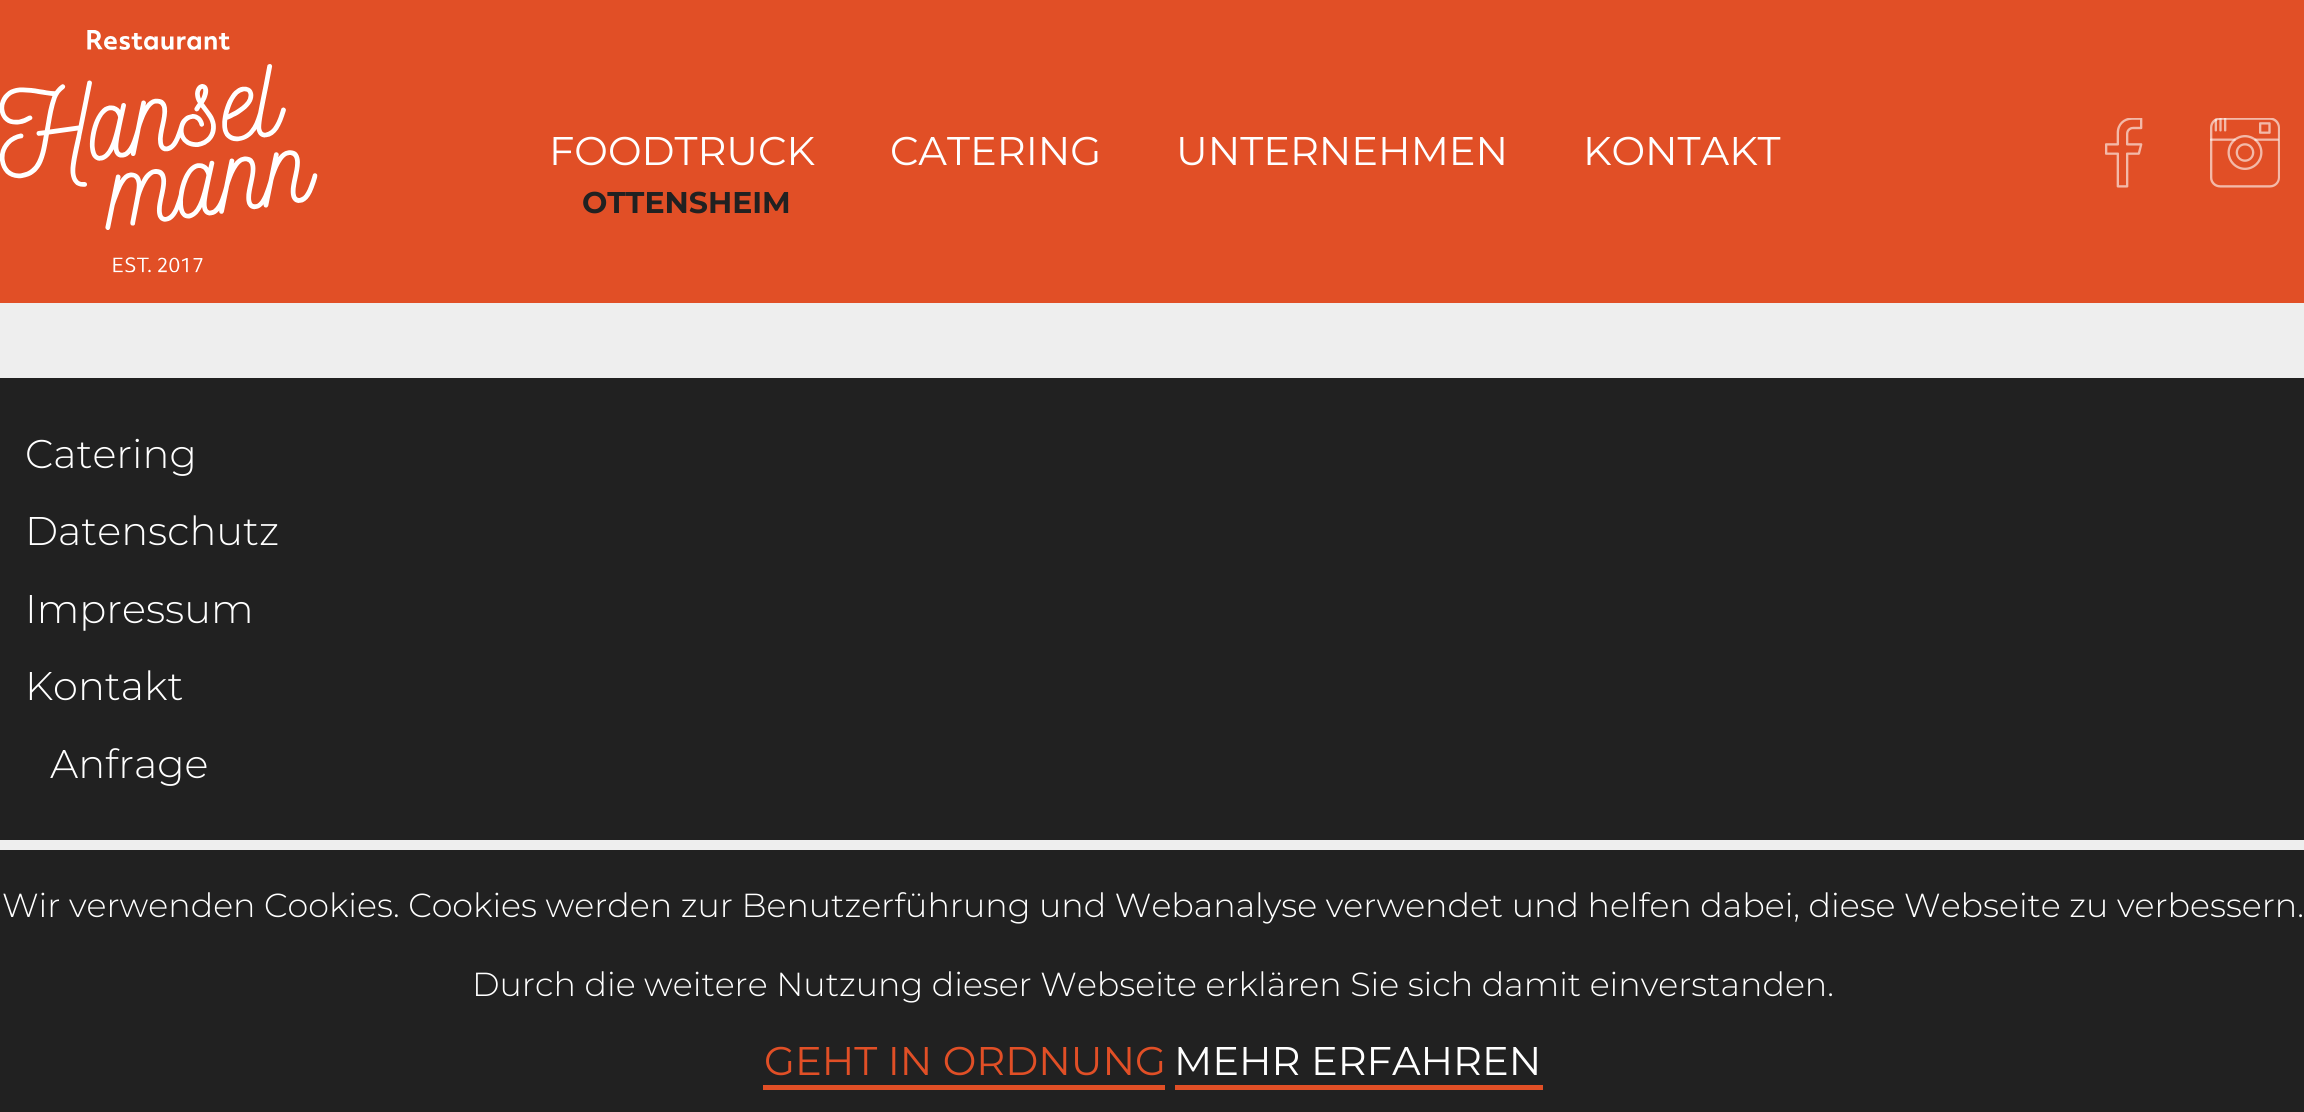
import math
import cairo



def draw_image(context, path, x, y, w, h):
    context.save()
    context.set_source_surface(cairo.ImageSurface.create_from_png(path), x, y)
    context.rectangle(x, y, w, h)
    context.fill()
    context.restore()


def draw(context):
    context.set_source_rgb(238 / 255, 238 / 255, 238 / 255)
    context.paint()
    context.set_source_rgb(225 / 255, 79 / 255, 38 / 255)
    context.rectangle(0, 0, 2304, 303)
    context.fill()
    draw_image(context, "images/1.png", 0, 30, 318, 243)
    draw_image(context, "images/2.png", 2105, 118, 38, 70)
    draw_image(context, "images/3.png", 2210, 118, 70, 70)
    context.set_source_rgb(33 / 255, 33 / 255, 33 / 255)
    context.rectangle(0, 378, 2304, 462)
    context.fill()
    context.rectangle(0, 850, 2304, 262)
    context.fill()
    context.set_source_rgb(225 / 255, 79 / 255, 38 / 255)
    context.rectangle(763, 1085, 402, 5)
    context.fill()
    context.rectangle(1175, 1085, 368, 5)
    context.fill()
    context.select_font_face("Montserrat")
    context.set_font_size(40)
    context.set_source_rgb(1, 1, 1)
    context.move_to(549, 165)
    context.show_text("FOODTRUCK")
    context.select_font_face("Montserrat", cairo.FontSlant.NORMAL, cairo.FontWeight.BOLD)
    context.set_font_size(30)
    context.set_source_rgb(33 / 255, 33 / 255, 33 / 255)
    context.move_to(582, 213)
    context.show_text("OTTENSHEIM")
    context.select_font_face("Montserrat")
    context.set_font_size(40)
    context.set_source_rgb(1, 1, 1)
    context.move_to(890, 165)
    context.show_text("CATERING")
    context.move_to(1176, 165)
    context.show_text("UNTERNEHMEN")
    context.move_to(1583, 165)
    context.show_text("KONTAKT")
    context.select_font_face("Montserrat Light")
    context.move_to(25, 468)
    context.show_text("Catering")
    context.move_to(25, 545)
    context.show_text("Datenschutz")
    context.move_to(25, 623)
    context.show_text("Impressum")
    context.move_to(25, 700)
    context.show_text("Kontakt")
    context.move_to(50, 778)
    context.show_text("Anfrage")
    context.set_font_size(33.33)
    context.move_to(2, 917)
    context.show_text("Wir verwenden Cookies. Cookies werden zur Benutzerführung und Webanalyse verwendet und helfen dabei, diese Webseite zu verbessern.")
    context.move_to(472, 996)
    context.show_text("Durch die weitere Nutzung dieser Webseite erklären Sie sich damit einverstanden.")
    context.select_font_face("Montserrat")
    context.set_font_size(40)
    context.set_source_rgb(225 / 255, 79 / 255, 38 / 255)
    context.move_to(764, 1075)
    context.show_text("GEHT IN ORDNUNG")
    context.set_source_rgb(1, 1, 1)
    context.move_to(1174, 1075)
    context.show_text("MEHR ERFAHREN")


surface = cairo.ImageSurface(cairo.Format.RGB24, 2304, 1112)
context = cairo.Context(surface)
options = cairo.FontOptions()
options.set_hint_metrics(cairo.HintMetrics.OFF)
options.set_hint_style(cairo.HintStyle.NONE)
context.set_font_options(options)
context.set_miter_limit(4)
draw(context)
surface.write_to_png("out.png")
